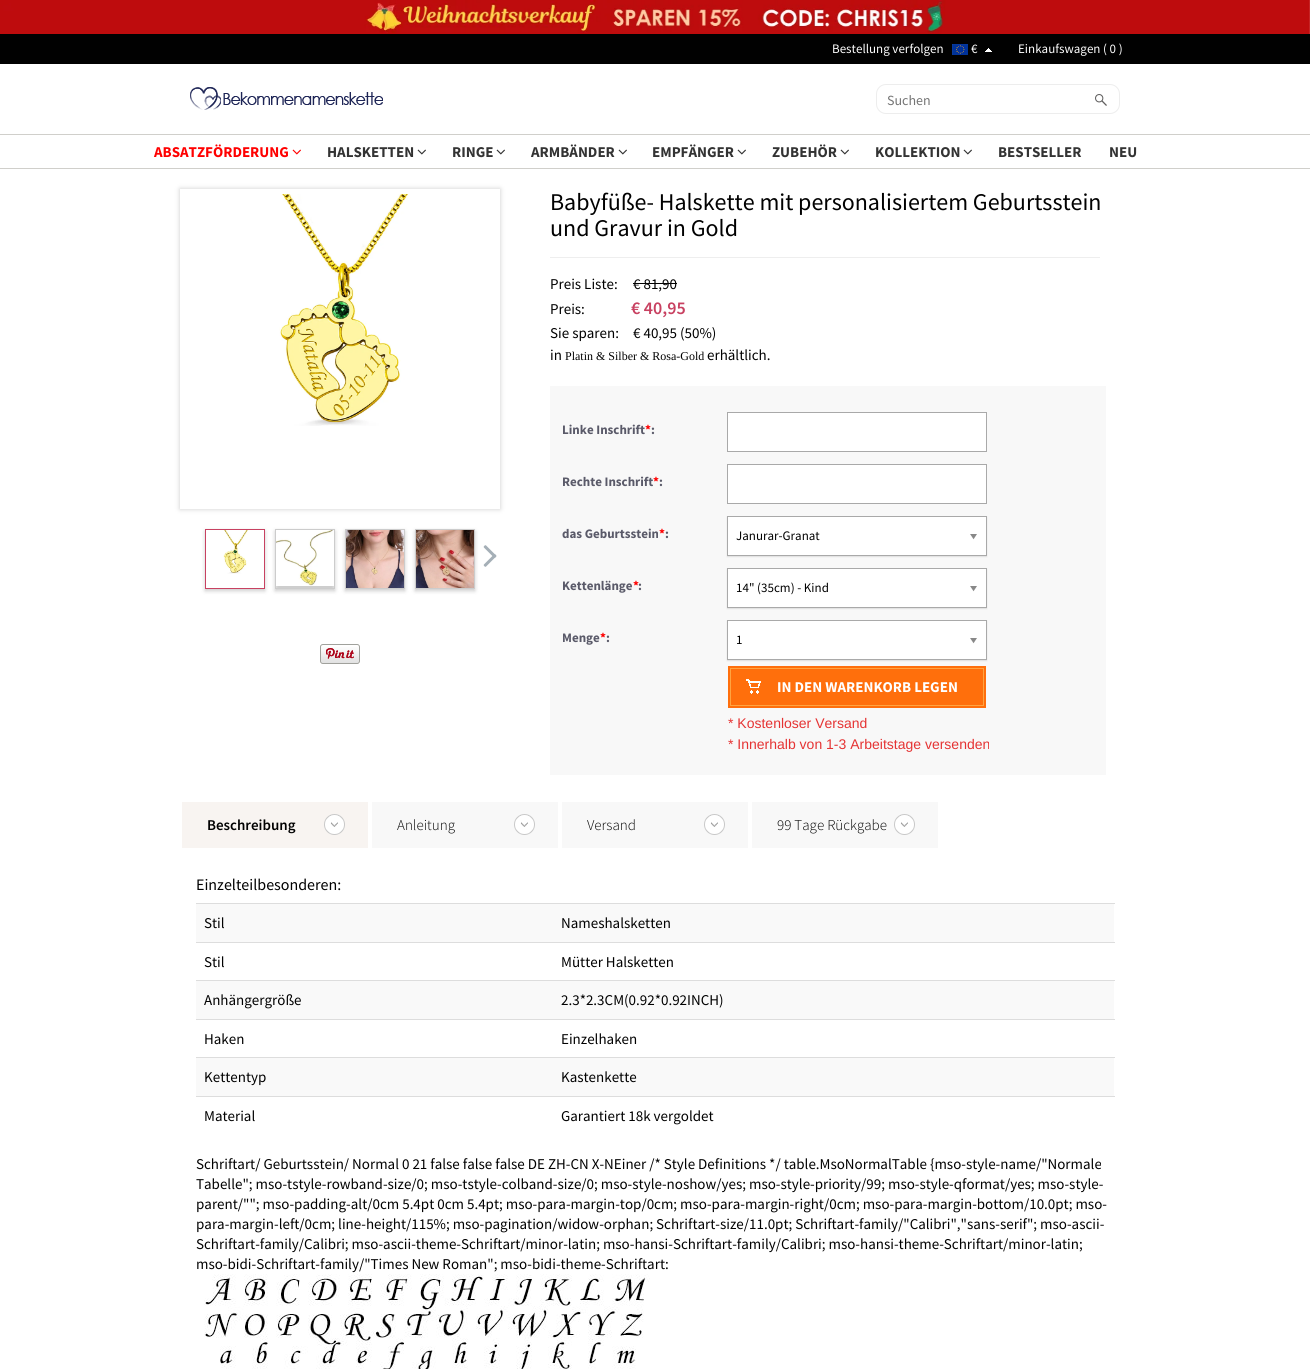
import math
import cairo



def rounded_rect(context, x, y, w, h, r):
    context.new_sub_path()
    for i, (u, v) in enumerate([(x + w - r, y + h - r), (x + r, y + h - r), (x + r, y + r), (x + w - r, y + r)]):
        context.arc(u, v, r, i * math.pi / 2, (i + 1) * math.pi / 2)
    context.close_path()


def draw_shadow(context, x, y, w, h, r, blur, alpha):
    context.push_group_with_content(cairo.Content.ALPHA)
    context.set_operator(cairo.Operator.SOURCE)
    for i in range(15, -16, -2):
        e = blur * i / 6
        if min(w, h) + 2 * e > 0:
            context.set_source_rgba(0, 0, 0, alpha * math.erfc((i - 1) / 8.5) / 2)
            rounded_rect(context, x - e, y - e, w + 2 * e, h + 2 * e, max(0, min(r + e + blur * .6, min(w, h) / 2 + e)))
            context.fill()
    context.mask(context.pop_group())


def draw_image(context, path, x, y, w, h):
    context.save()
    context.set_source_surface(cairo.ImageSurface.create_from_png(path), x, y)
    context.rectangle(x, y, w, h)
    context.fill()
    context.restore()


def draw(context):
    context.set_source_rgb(1, 1, 1)
    context.paint()
    draw_image(context, "images/1.png", 0, 0, 1310, 34)
    context.set_source_rgb(1 / 255, 1 / 255, 1 / 255)
    context.rectangle(0, 34, 1310, 30)
    context.fill()
    draw_image(context, "images/2.png", 952, 44, 16, 11)
    draw_image(context, "images/3.png", 985, 48, 7, 4)
    draw_image(context, "images/4.png", 190, 87, 193, 23)
    rounded_rect(context, 876.5, 84.5, 243, 29, 9.5)
    context.set_source_rgb(237 / 255, 237 / 255, 237 / 255)
    context.set_line_width(1)
    context.stroke()
    draw_image(context, "images/5.png", 1095, 94, 12, 12)
    context.set_source_rgb(208 / 255, 207 / 255, 203 / 255)
    context.rectangle(0, 134, 1310, 1)
    context.fill()
    context.rectangle(0, 168, 1310, 1)
    context.fill()
    draw_image(context, "images/6.png", 292, 149, 9, 6)
    draw_image(context, "images/7.png", 417, 149, 9, 6)
    draw_image(context, "images/7.png", 496, 149, 9, 6)
    draw_image(context, "images/7.png", 618, 149, 9, 6)
    draw_image(context, "images/7.png", 737, 149, 9, 6)
    draw_image(context, "images/7.png", 840, 149, 9, 6)
    draw_image(context, "images/7.png", 963, 149, 9, 6)
    context.save()
    context.set_fill_rule(cairo.FillRule.EVEN_ODD)
    context.new_path()
    context.move_to(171, 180)
    context.line_to(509, 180)
    context.line_to(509, 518)
    context.line_to(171, 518)
    context.close_path()
    context.move_to(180, 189)
    context.line_to(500, 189)
    context.line_to(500, 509)
    context.line_to(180, 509)
    context.close_path()
    context.clip()
    context.set_source_rgb(204 / 255, 204 / 255, 204 / 255)
    draw_shadow(context, 180, 189, 320, 320, 0, 2.5, 1)
    context.restore()
    draw_image(context, "images/8.png", 279, 194, 130, 232)
    context.save()
    context.set_fill_rule(cairo.FillRule.EVEN_ODD)
    context.new_path()
    context.move_to(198, 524)
    context.line_to(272, 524)
    context.line_to(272, 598)
    context.line_to(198, 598)
    context.close_path()
    context.move_to(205, 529)
    context.line_to(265, 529)
    context.line_to(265, 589)
    context.line_to(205, 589)
    context.close_path()
    context.clip()
    context.set_source_rgb(0, 0, 0)
    draw_shadow(context, 205, 531, 60, 60, 0, 2, 0.2)
    context.restore()
    context.rectangle(205.5, 529.5, 59, 59)
    context.set_source_rgb(200 / 255, 65 / 255, 97 / 255)
    context.stroke()
    draw_image(context, "images/9.png", 223, 530, 25, 44)
    context.set_source_rgb(0, 0, 0)
    draw_shadow(context, 275, 531, 60, 60, 0, 2, 0.2)
    context.rectangle(275.5, 529.5, 59, 59)
    context.set_source_rgb(204 / 255, 204 / 255, 204 / 255)
    context.stroke()
    draw_image(context, "images/10.png", 276, 530, 58, 56)
    context.set_source_rgb(0, 0, 0)
    draw_shadow(context, 345, 531, 60, 60, 0, 2, 0.2)
    context.rectangle(345.5, 529.5, 59, 59)
    context.set_source_rgb(204 / 255, 204 / 255, 204 / 255)
    context.stroke()
    draw_image(context, "images/11.png", 346, 530, 58, 58)
    context.set_source_rgb(0, 0, 0)
    draw_shadow(context, 415, 531, 60, 60, 0, 2, 0.2)
    context.rectangle(415.5, 529.5, 59, 59)
    context.set_source_rgb(204 / 255, 204 / 255, 204 / 255)
    context.stroke()
    draw_image(context, "images/12.png", 416, 530, 58, 58)
    draw_image(context, "images/13.png", 483, 545, 14, 22)
    draw_image(context, "images/14.png", 320, 644, 40, 20)
    context.set_source_rgb(238 / 255, 238 / 255, 238 / 255)
    context.rectangle(550, 257, 550, 1)
    context.fill()
    context.set_source_rgb(1 / 255, 1 / 255, 1 / 255)
    context.rectangle(633, 283, 44, 1)
    context.fill()
    context.set_source_rgb(248 / 255, 248 / 255, 248 / 255)
    context.rectangle(550, 386, 556, 389)
    context.fill()
    context.set_source_rgb(1, 1, 1)
    context.rectangle(727.5, 412.5, 259, 39)
    context.fill_preserve()
    context.set_source_rgb(169 / 255, 169 / 255, 169 / 255)
    context.stroke()
    context.set_source_rgb(1, 1, 1)
    context.rectangle(727.5, 464.5, 259, 39)
    context.fill_preserve()
    context.set_source_rgb(169 / 255, 169 / 255, 169 / 255)
    context.stroke()
    context.set_source_rgb(0, 0, 0)
    draw_shadow(context, 727, 517, 260, 40, 0, 0.5, 0.1)
    context.set_source_rgb(1, 1, 1)
    context.rectangle(727.5, 516.5, 259, 39)
    context.fill_preserve()
    context.set_source_rgb(169 / 255, 169 / 255, 169 / 255)
    context.stroke()
    draw_image(context, "images/15.png", 970, 534, 7, 6)
    context.set_source_rgb(0, 0, 0)
    draw_shadow(context, 727, 569, 260, 40, 0, 0.5, 0.1)
    context.set_source_rgb(1, 1, 1)
    context.rectangle(727.5, 568.5, 259, 39)
    context.fill_preserve()
    context.set_source_rgb(169 / 255, 169 / 255, 169 / 255)
    context.stroke()
    draw_image(context, "images/15.png", 970, 586, 7, 6)
    context.set_source_rgb(0, 0, 0)
    draw_shadow(context, 727, 621, 260, 40, 0, 0.5, 0.1)
    context.set_source_rgb(1, 1, 1)
    context.rectangle(727.5, 620.5, 259, 39)
    context.fill_preserve()
    context.set_source_rgb(169 / 255, 169 / 255, 169 / 255)
    context.stroke()
    draw_image(context, "images/15.png", 970, 638, 7, 6)
    context.set_source_rgb(1, 111 / 255, 12 / 255)
    context.rectangle(728, 666, 258, 42)
    context.fill()
    draw_image(context, "images/16.png", 746, 679, 15, 15)
    context.rectangle(730.5, 668.5, 253, 37)
    context.set_source_rgb(1, 164 / 255, 65 / 255)
    context.stroke()
    context.set_source_rgb(248 / 255, 244 / 255, 241 / 255)
    context.rectangle(182, 802, 186, 46)
    context.fill()
    draw_image(context, "images/17.png", 324, 814, 21, 21)
    context.set_source_rgb(248 / 255, 248 / 255, 248 / 255)
    context.rectangle(372, 802, 186, 46)
    context.fill()
    draw_image(context, "images/18.png", 514, 814, 21, 21)
    context.rectangle(562, 802, 186, 46)
    context.fill()
    draw_image(context, "images/18.png", 704, 814, 21, 21)
    context.rectangle(752, 802, 186, 46)
    context.fill()
    draw_image(context, "images/18.png", 894, 814, 21, 21)
    context.set_source_rgb(249 / 255, 249 / 255, 249 / 255)
    context.rectangle(196, 904, 918, 38)
    context.fill()
    context.set_source_rgb(221 / 255, 221 / 255, 221 / 255)
    context.rectangle(196, 903, 919, 1)
    context.fill()
    context.rectangle(196, 942, 919, 1)
    context.fill()
    context.set_source_rgb(249 / 255, 249 / 255, 249 / 255)
    context.rectangle(196, 981, 918, 38)
    context.fill()
    context.set_source_rgb(221 / 255, 221 / 255, 221 / 255)
    context.rectangle(196, 980, 919, 1)
    context.fill()
    context.rectangle(196, 1019, 919, 1)
    context.fill()
    context.set_source_rgb(249 / 255, 249 / 255, 249 / 255)
    context.rectangle(196, 1058, 918, 38)
    context.fill()
    context.set_source_rgb(221 / 255, 221 / 255, 221 / 255)
    context.rectangle(196, 1057, 919, 1)
    context.fill()
    context.rectangle(196, 1096, 919, 1)
    context.fill()
    draw_image(context, "images/19.png", 204, 1274, 446, 95)
    context.select_font_face("Source Sans Pro")
    context.set_font_size(13)
    context.set_source_rgb(1, 1, 1)
    context.move_to(832, 53)
    context.show_text("Bestellung verfolgen")
    context.move_to(971, 53)
    context.show_text("€")
    context.move_to(1018, 53)
    context.show_text("Einkaufswagen ( 0 )")
    context.set_font_size(14)
    context.set_source_rgb(117 / 255, 117 / 255, 117 / 255)
    context.move_to(887, 105)
    context.show_text("Suchen")
    context.select_font_face("Source Sans Pro", cairo.FontSlant.NORMAL, cairo.FontWeight.BOLD)
    context.set_font_size(15)
    context.set_source_rgb(1, 0, 0)
    context.move_to(154, 157)
    context.show_text("ABSATZFÖRDERUNG")
    context.set_source_rgb(51 / 255, 51 / 255, 51 / 255)
    context.move_to(327, 157)
    context.show_text("HALSKETTEN")
    context.move_to(452, 157)
    context.show_text("RINGE")
    context.move_to(531, 157)
    context.show_text("ARMBÄNDER")
    context.move_to(652, 157)
    context.show_text("EMPFÄNGER")
    context.move_to(772, 157)
    context.show_text("ZUBEHÖR")
    context.move_to(875, 157)
    context.show_text("KOLLEKTION")
    context.move_to(998, 157)
    context.show_text("BESTSELLER")
    context.move_to(1109, 157)
    context.show_text("NEU")
    context.select_font_face("Source Sans Pro")
    context.set_font_size(24)
    context.set_source_rgb(1 / 255, 1 / 255, 1 / 255)
    context.move_to(550, 210)
    context.show_text("Babyfüße- Halskette mit personalisiertem Geburtsstein")
    context.move_to(550, 236)
    context.show_text("und Gravur in Gold")
    context.set_font_size(15)
    context.move_to(550, 289)
    context.show_text("Preis Liste:")
    context.move_to(633, 289)
    context.show_text("€ 81,90")
    context.move_to(550, 314)
    context.show_text("Preis:")
    context.select_font_face("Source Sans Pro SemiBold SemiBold")
    context.set_font_size(18)
    context.set_source_rgb(200 / 255, 65 / 255, 97 / 255)
    context.move_to(631, 314)
    context.show_text("€ 40,95")
    context.select_font_face("Source Sans Pro")
    context.set_font_size(15)
    context.set_source_rgb(1 / 255, 1 / 255, 1 / 255)
    context.move_to(550, 338)
    context.show_text("Sie sparen:")
    context.move_to(633, 338)
    context.show_text("€ 40,95 (50%)")
    context.move_to(550, 360)
    context.show_text("in")
    context.select_font_face("Liberation Serif")
    context.set_font_size(12)
    context.move_to(565, 360)
    context.show_text("Platin & Silber & Rosa-Gold")
    context.select_font_face("Source Sans Pro")
    context.set_font_size(15)
    context.move_to(707, 360)
    context.show_text("erhältlich.")
    context.select_font_face("Source Sans Pro", cairo.FontSlant.NORMAL, cairo.FontWeight.BOLD)
    context.set_font_size(13)
    context.set_source_rgb(90 / 255, 90 / 255, 105 / 255)
    context.move_to(562, 434)
    context.show_text("Linke Inschrift")
    context.set_source_rgb(1, 0, 0)
    context.move_to(645, 434)
    context.show_text("*")
    context.set_source_rgb(90 / 255, 90 / 255, 105 / 255)
    context.move_to(651, 434)
    context.show_text(":")
    context.move_to(562, 486)
    context.show_text("Rechte Inschrift")
    context.set_source_rgb(1, 0, 0)
    context.move_to(653, 486)
    context.show_text("*")
    context.set_source_rgb(90 / 255, 90 / 255, 105 / 255)
    context.move_to(659, 486)
    context.show_text(":")
    context.move_to(562, 538)
    context.show_text("das Geburtsstein")
    context.set_source_rgb(1, 0, 0)
    context.move_to(659, 538)
    context.show_text("*")
    context.set_source_rgb(90 / 255, 90 / 255, 105 / 255)
    context.move_to(665, 538)
    context.show_text(":")
    context.select_font_face("Source Sans Pro")
    context.set_source_rgb(1 / 255, 1 / 255, 1 / 255)
    context.move_to(736, 540)
    context.show_text("Janurar-Granat")
    context.select_font_face("Source Sans Pro", cairo.FontSlant.NORMAL, cairo.FontWeight.BOLD)
    context.set_source_rgb(90 / 255, 90 / 255, 105 / 255)
    context.move_to(562, 590)
    context.show_text("Kettenlänge")
    context.set_source_rgb(1, 0, 0)
    context.move_to(633, 590)
    context.show_text("*")
    context.set_source_rgb(90 / 255, 90 / 255, 105 / 255)
    context.move_to(638, 590)
    context.show_text(":")
    context.select_font_face("Source Sans Pro")
    context.set_source_rgb(1 / 255, 1 / 255, 1 / 255)
    context.move_to(736, 592)
    context.show_text("14\" (35cm) - Kind")
    context.select_font_face("Source Sans Pro", cairo.FontSlant.NORMAL, cairo.FontWeight.BOLD)
    context.set_source_rgb(90 / 255, 90 / 255, 105 / 255)
    context.move_to(562, 642)
    context.show_text("Menge")
    context.set_source_rgb(1, 0, 0)
    context.move_to(600, 642)
    context.show_text("*")
    context.set_source_rgb(90 / 255, 90 / 255, 105 / 255)
    context.move_to(606, 642)
    context.show_text(":")
    context.select_font_face("Source Sans Pro")
    context.set_source_rgb(1 / 255, 1 / 255, 1 / 255)
    context.move_to(736, 644)
    context.show_text("1")
    context.select_font_face("Source Sans Pro", cairo.FontSlant.NORMAL, cairo.FontWeight.BOLD)
    context.set_font_size(15)
    context.set_source_rgb(1, 1, 1)
    context.move_to(777, 692)
    context.show_text("IN DEN WARENKORB LEGEN")
    context.select_font_face("Liberation Sans")
    context.set_font_size(14)
    context.set_source_rgb(229 / 255, 51 / 255, 51 / 255)
    context.move_to(728, 728)
    context.show_text("* Kostenloser Versand")
    context.move_to(728, 749)
    context.show_text("* Innerhalb von 1-3 Arbeitstage versenden")
    context.select_font_face("Source Sans Pro SemiBold SemiBold")
    context.set_font_size(15)
    context.set_source_rgb(1 / 255, 1 / 255, 1 / 255)
    context.move_to(207, 830)
    context.show_text("Beschreibung")
    context.select_font_face("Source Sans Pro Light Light")
    context.move_to(397, 830)
    context.show_text("Anleitung")
    context.move_to(587, 830)
    context.show_text("Versand")
    context.move_to(777, 830)
    context.show_text("99 Tage Rückgabe")
    context.select_font_face("Source Sans Pro")
    context.set_font_size(16)
    context.move_to(196, 890)
    context.show_text("Einzelteilbesonderen:")
    context.set_font_size(15)
    context.move_to(204, 928)
    context.show_text("Stil")
    context.move_to(561, 928)
    context.show_text("Nameshalsketten")
    context.move_to(204, 967)
    context.show_text("Stil")
    context.move_to(561, 967)
    context.show_text("Mütter Halsketten")
    context.move_to(204, 1005)
    context.show_text("Anhängergröße")
    context.move_to(561, 1005)
    context.show_text("2.3*2.3CM(0.92*0.92INCH)")
    context.move_to(204, 1044)
    context.show_text("Haken")
    context.move_to(561, 1044)
    context.show_text("Einzelhaken")
    context.move_to(204, 1082)
    context.show_text("Kettentyp")
    context.move_to(561, 1082)
    context.show_text("Kastenkette")
    context.move_to(204, 1121)
    context.show_text("Material")
    context.move_to(561, 1121)
    context.show_text("Garantiert 18k vergoldet")
    context.move_to(196, 1169)
    context.show_text("Schriftart/ Geburtsstein/ Normal 0 21 false false false DE ZH-CN X-NEiner /* Style Definitions */ table.MsoNormalTable {mso-style-name/\"Normale")
    context.move_to(196, 1189)
    context.show_text("Tabelle\"; mso-tstyle-rowband-size/0; mso-tstyle-colband-size/0; mso-style-noshow/yes; mso-style-priority/99; mso-style-qformat/yes; mso-style-")
    context.move_to(196, 1209)
    context.show_text("parent/\"\"; mso-padding-alt/0cm 5.4pt 0cm 5.4pt; mso-para-margin-top/0cm; mso-para-margin-right/0cm; mso-para-margin-bottom/10.0pt; mso-")
    context.move_to(196, 1229)
    context.show_text("para-margin-left/0cm; line-height/115%; mso-pagination/widow-orphan; Schriftart-size/11.0pt; Schriftart-family/\"Calibri\",\"sans-serif\"; mso-ascii-")
    context.move_to(196, 1249)
    context.show_text("Schriftart-family/Calibri; mso-ascii-theme-Schriftart/minor-latin; mso-hansi-Schriftart-family/Calibri; mso-hansi-theme-Schriftart/minor-latin;")
    context.move_to(196, 1269)
    context.show_text("mso-bidi-Schriftart-family/\"Times New Roman\"; mso-bidi-theme-Schriftart:")


surface = cairo.ImageSurface(cairo.Format.RGB24, 1310, 1369)
context = cairo.Context(surface)
options = cairo.FontOptions()
options.set_hint_metrics(cairo.HintMetrics.OFF)
options.set_hint_style(cairo.HintStyle.NONE)
context.set_font_options(options)
context.set_miter_limit(4)
draw(context)
surface.write_to_png("out.png")
